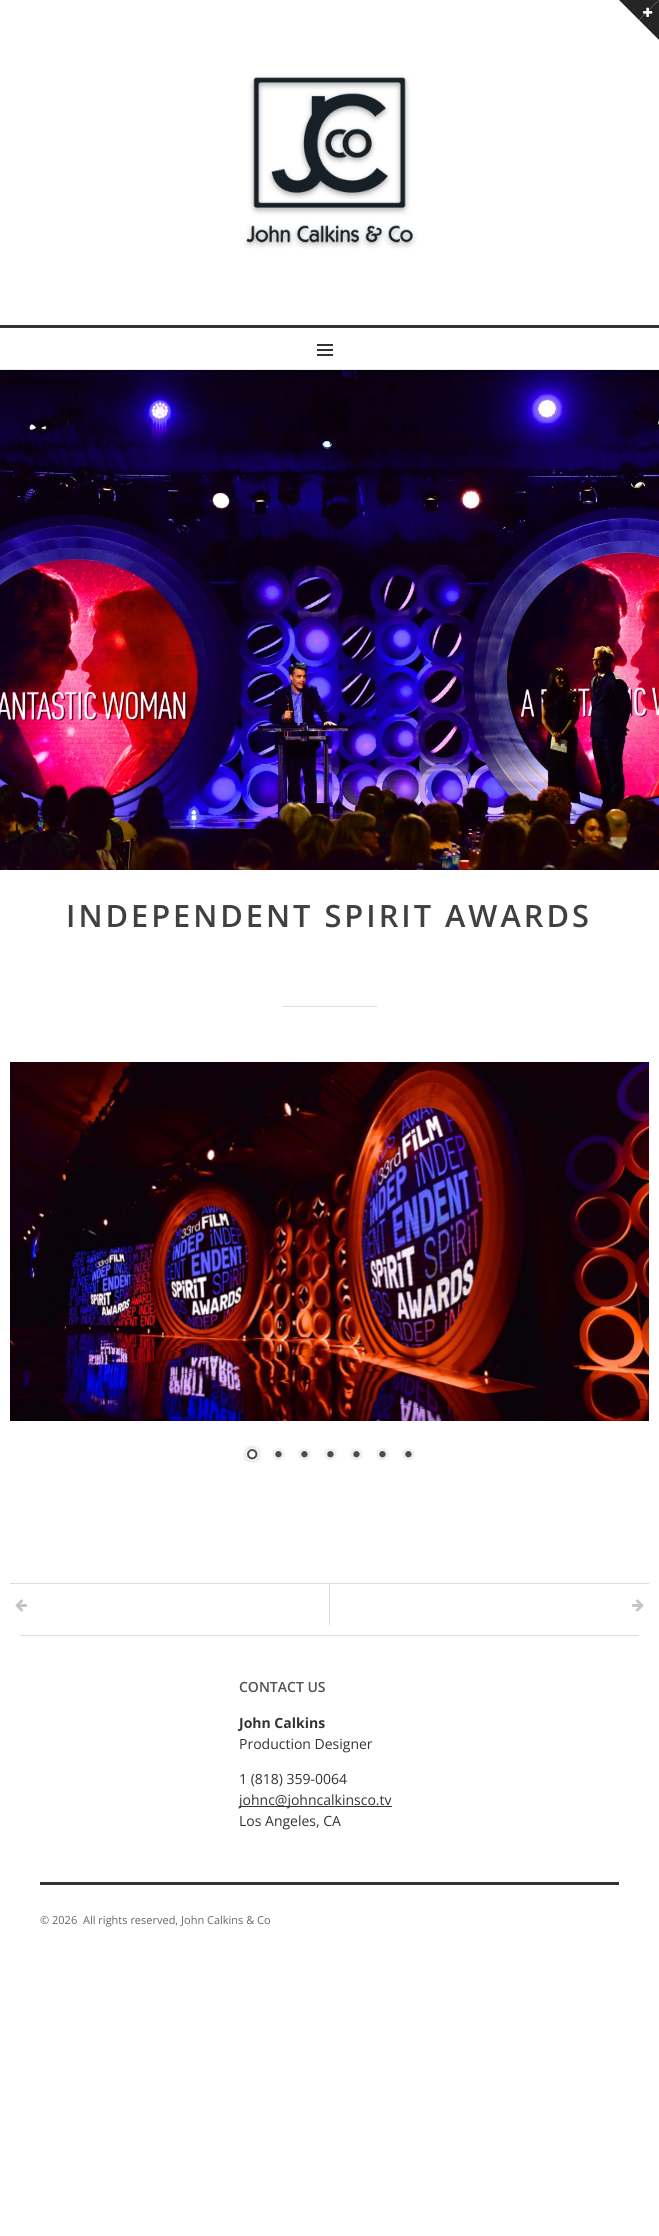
import math
import cairo



def draw_spaced(context, x, y, s, letter, word):
    context.move_to(x, y)
    for ch in s:
        context.show_text(ch)
        context.rel_move_to(letter + word * (ch == ' '), 0)


def draw_image(context, path, x, y, w, h):
    context.save()
    context.set_source_surface(cairo.ImageSurface.create_from_png(path), x, y)
    context.rectangle(x, y, w, h)
    context.fill()
    context.restore()


def draw(context):
    context.set_source_rgb(1, 1, 1)
    context.paint()
    context.set_source_rgb(37 / 255, 37 / 255, 37 / 255)
    context.new_path()
    context.move_to(619, 0)
    context.line_to(659, 0)
    context.line_to(639, 20)
    context.close_path()
    context.fill()
    context.new_path()
    context.move_to(659, 0)
    context.line_to(659, 40)
    context.line_to(639, 20)
    context.close_path()
    context.fill()
    draw_image(context, "images/1.png", 643, 7, 10, 10)
    draw_image(context, "images/2.png", 244, 76, 173, 173)
    context.set_source_rgb(51 / 255, 51 / 255, 51 / 255)
    context.rectangle(0, 325, 659, 3)
    context.fill()
    context.set_source_rgb(234 / 255, 234 / 255, 234 / 255)
    context.rectangle(0, 369, 659, 1)
    context.fill()
    draw_image(context, "images/3.png", 317, 344, 16, 12)
    draw_image(context, "images/4.png", 0, 370, 659, 500)
    context.set_source_rgb(222 / 255, 222 / 255, 222 / 255)
    context.rectangle(282, 1006, 95, 1)
    context.fill()
    draw_image(context, "images/5.png", 10, 1062, 639, 359)
    draw_image(context, "images/6.png", 243, 1445, 18, 18)
    draw_image(context, "images/7.png", 272, 1448, 13, 12)
    draw_image(context, "images/7.png", 298, 1448, 13, 12)
    draw_image(context, "images/7.png", 324, 1448, 13, 12)
    draw_image(context, "images/7.png", 350, 1448, 13, 12)
    draw_image(context, "images/7.png", 376, 1448, 13, 12)
    draw_image(context, "images/7.png", 402, 1448, 13, 12)
    context.set_source_rgb(221 / 255, 221 / 255, 221 / 255)
    context.rectangle(10, 1583, 639, 1)
    context.fill()
    context.rectangle(329, 1583, 1, 42)
    context.fill()
    draw_image(context, "images/8.png", 15, 1599, 12, 13)
    draw_image(context, "images/9.png", 632, 1599, 12, 13)
    context.rectangle(20, 1635, 619, 1)
    context.fill()
    context.set_source_rgb(51 / 255, 51 / 255, 51 / 255)
    context.rectangle(239, 1806, 153, 1)
    context.fill()
    context.rectangle(40, 1882, 579, 3)
    context.fill()
    context.select_font_face("Open Sans SemiBold")
    context.set_font_size(30.75)
    context.set_source_rgb(64 / 255, 64 / 255, 64 / 255)
    draw_spaced(context, 66, 927, "INDEPENDENT SPIRIT AWARDS", 3, 0)
    context.set_font_size(14)
    context.set_source_rgb(82 / 255, 82 / 255, 82 / 255)
    context.move_to(239, 1692)
    context.show_text("CONTACT US")
    context.select_font_face("Open Sans", cairo.FontSlant.NORMAL, cairo.FontWeight.BOLD)
    context.set_source_rgb(51 / 255, 51 / 255, 51 / 255)
    context.move_to(239, 1728)
    context.show_text("John Calkins")
    context.select_font_face("Open Sans")
    context.move_to(239, 1749)
    context.show_text("Production Designer")
    context.move_to(239, 1784)
    context.show_text("1 (818) 359-0064")
    context.move_to(239, 1805)
    context.show_text("johnc@johncalkinsco.tv")
    context.move_to(239, 1826)
    context.show_text("Los Angeles, CA")
    context.set_font_size(11)
    context.set_source_rgb(102 / 255, 102 / 255, 102 / 255)
    context.move_to(40, 1924)
    context.show_text("© 2026")
    context.move_to(83, 1924)
    context.show_text("All rights reserved, John Calkins & Co")


surface = cairo.ImageSurface(cairo.Format.RGB24, 659, 2236)
context = cairo.Context(surface)
options = cairo.FontOptions()
options.set_hint_metrics(cairo.HintMetrics.OFF)
options.set_hint_style(cairo.HintStyle.NONE)
context.set_font_options(options)
context.set_miter_limit(4)
draw(context)
surface.write_to_png("out.png")
